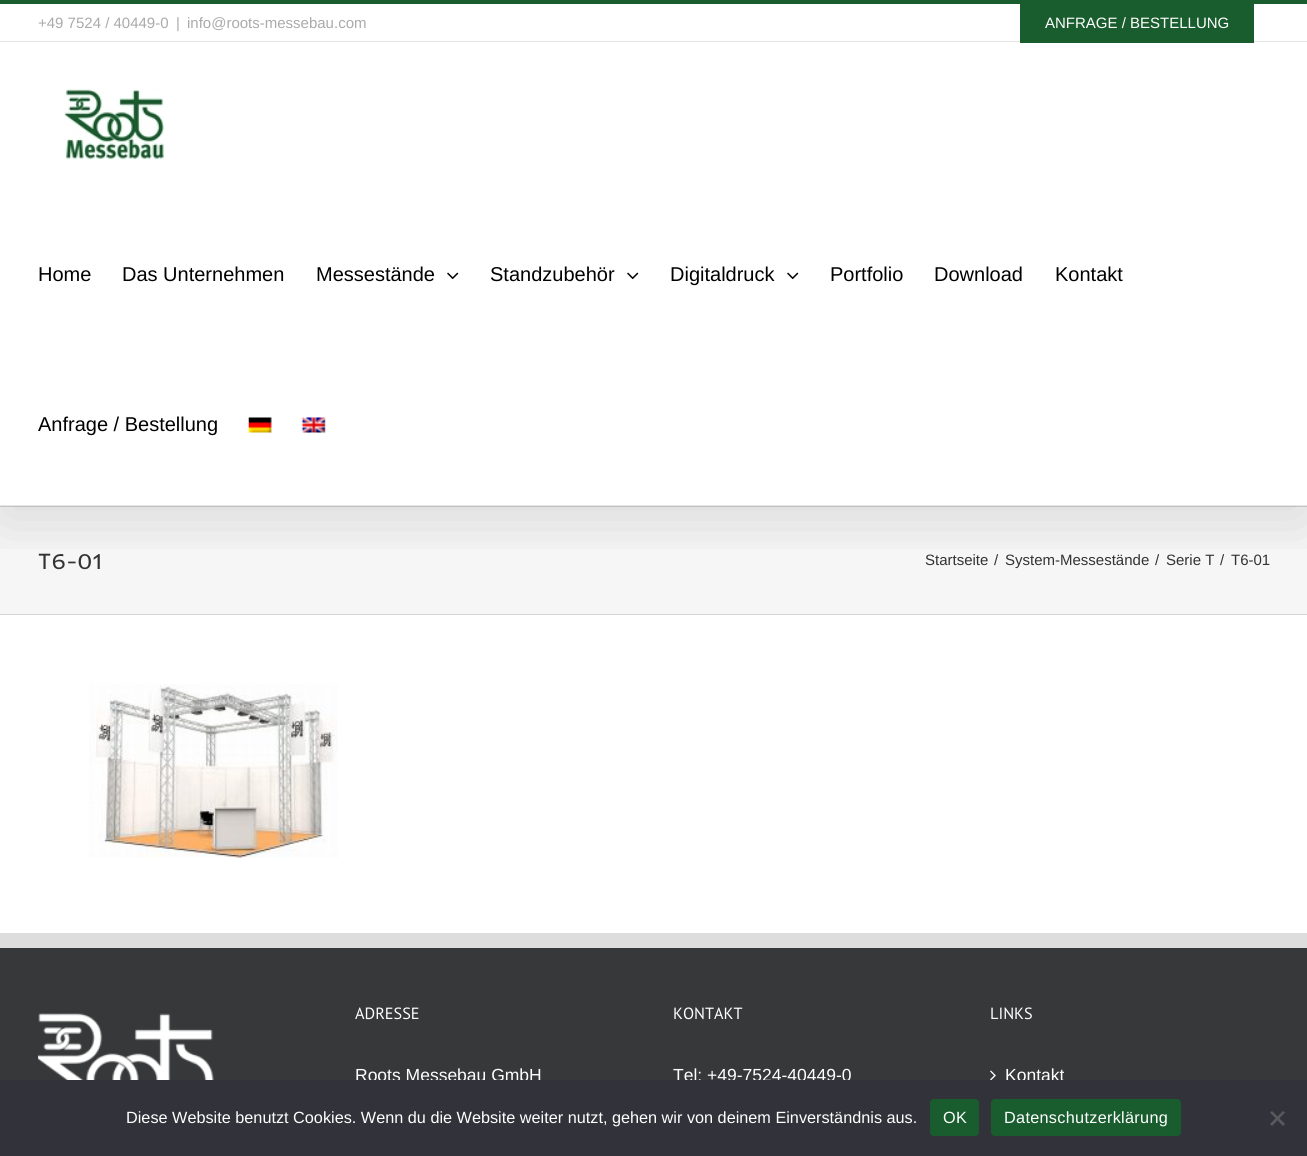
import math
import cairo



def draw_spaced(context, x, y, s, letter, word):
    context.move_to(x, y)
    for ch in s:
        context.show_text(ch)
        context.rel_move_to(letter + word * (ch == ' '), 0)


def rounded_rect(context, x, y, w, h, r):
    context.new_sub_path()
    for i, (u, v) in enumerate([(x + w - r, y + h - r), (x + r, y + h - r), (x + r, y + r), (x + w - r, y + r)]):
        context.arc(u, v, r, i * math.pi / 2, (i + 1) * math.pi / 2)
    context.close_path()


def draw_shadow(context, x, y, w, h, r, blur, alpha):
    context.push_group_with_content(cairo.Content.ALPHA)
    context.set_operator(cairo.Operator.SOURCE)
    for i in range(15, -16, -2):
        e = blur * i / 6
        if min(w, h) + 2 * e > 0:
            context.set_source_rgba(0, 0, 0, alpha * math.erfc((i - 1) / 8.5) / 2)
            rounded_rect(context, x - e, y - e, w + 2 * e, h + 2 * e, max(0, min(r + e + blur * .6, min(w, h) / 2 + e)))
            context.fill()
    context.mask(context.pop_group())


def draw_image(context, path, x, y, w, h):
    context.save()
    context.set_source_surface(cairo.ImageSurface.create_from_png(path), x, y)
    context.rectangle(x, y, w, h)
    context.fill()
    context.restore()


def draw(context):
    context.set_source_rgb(1, 1, 1)
    context.paint()
    context.set_source_rgb(246 / 255, 246 / 255, 246 / 255)
    context.rectangle(0, 507, 1307, 107)
    context.fill()
    context.set_source_rgb(210 / 255, 211 / 255, 212 / 255)
    context.rectangle(0, 506, 1307, 1)
    context.fill()
    context.save()
    context.rectangle(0, 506, 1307, 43)
    context.clip()
    context.set_source_rgb(0, 0, 0)
    draw_shadow(context, 3, 15, 1302, 501, 0, 31, 0.14)
    context.restore()
    context.set_source_rgb(25 / 255, 93 / 255, 46 / 255)
    context.rectangle(0, 0, 1307, 4)
    context.fill()
    context.set_source_rgb(229 / 255, 229 / 255, 229 / 255)
    context.rectangle(0, 41, 1307, 1)
    context.fill()
    context.set_source_rgb(25 / 255, 93 / 255, 46 / 255)
    context.rectangle(1020, 4, 234, 39)
    context.fill()
    context.set_source_rgb(229 / 255, 229 / 255, 229 / 255)
    context.rectangle(0, 505, 1307, 1)
    context.fill()
    draw_image(context, "images/1.png", 64, 88, 101, 72)
    draw_image(context, "images/2.png", 447, 272, 12, 8)
    draw_image(context, "images/2.png", 627, 272, 12, 8)
    draw_image(context, "images/2.png", 787, 272, 12, 8)
    draw_image(context, "images/3.png", 248, 417, 24, 16)
    draw_image(context, "images/4.png", 301, 417, 25, 16)
    context.set_source_rgb(210 / 255, 211 / 255, 212 / 255)
    context.rectangle(0, 614, 1307, 1)
    context.fill()
    draw_image(context, "images/5.png", 89, 684, 249, 174)
    context.set_source_rgb(54 / 255, 56 / 255, 57 / 255)
    context.rectangle(0, 948, 1307, 132)
    context.fill()
    context.set_source_rgb(221 / 255, 221 / 255, 221 / 255)
    context.rectangle(0, 933, 1307, 15)
    context.fill()
    draw_image(context, "images/6.png", 38, 1013, 176, 67)
    draw_image(context, "images/7.png", 990, 1070, 6, 10)
    context.select_font_face("Liberation Sans")
    context.set_font_size(15)
    context.set_source_rgb(170 / 255, 170 / 255, 170 / 255)
    context.move_to(38, 28)
    context.show_text("+49 7524 / 40449-0")
    context.move_to(176, 28)
    context.show_text("|")
    context.move_to(187, 28)
    context.show_text("info@roots-messebau.com")
    context.set_source_rgb(1, 1, 1)
    context.move_to(1045, 28)
    context.show_text("ANFRAGE / BESTELLUNG")
    context.set_font_size(20)
    context.set_source_rgb(0, 0, 0)
    context.move_to(38, 281)
    context.show_text("Home")
    context.move_to(122, 281)
    context.show_text("Das Unternehmen")
    context.move_to(316, 281)
    context.show_text("Messestände")
    context.move_to(490, 281)
    context.show_text("Standzubehör")
    context.move_to(670, 281)
    context.show_text("Digitaldruck")
    context.move_to(830, 281)
    context.show_text("Portfolio")
    context.move_to(934, 281)
    context.show_text("Download")
    context.move_to(1055, 281)
    context.show_text("Kontakt")
    context.move_to(38, 431)
    context.show_text("Anfrage / Bestellung")
    context.select_font_face("Inder")
    context.set_font_size(22.5)
    context.set_source_rgb(51 / 255, 51 / 255, 51 / 255)
    context.move_to(38, 569)
    context.show_text("T6-01")
    context.select_font_face("Liberation Sans")
    context.set_font_size(15)
    context.move_to(925, 565)
    context.show_text("Startseite")
    context.move_to(994, 565)
    context.show_text("/")
    context.move_to(1005, 565)
    context.show_text("System-Messestände")
    context.move_to(1155, 565)
    context.show_text("/")
    context.move_to(1166, 565)
    context.show_text("Serie T")
    context.move_to(1220, 565)
    context.show_text("/")
    context.move_to(1231, 565)
    context.show_text("T6-01")
    context.select_font_face("PT Sans")
    context.set_font_size(16.25)
    context.set_source_rgb(1, 1, 1)
    context.move_to(355, 1019)
    context.show_text("ADRESSE")
    context.select_font_face("Liberation Sans")
    context.set_font_size(17.5)
    context.move_to(355, 1081)
    context.show_text("Roots Messebau GmbH")
    context.select_font_face("PT Sans")
    context.set_font_size(16.25)
    context.move_to(673, 1019)
    context.show_text("KONTAKT")
    context.select_font_face("Liberation Sans")
    context.set_font_size(17.5)
    context.move_to(673, 1081)
    context.show_text("Tel: +49-7524-40449-0")
    context.select_font_face("PT Sans")
    context.set_font_size(16.25)
    context.move_to(990, 1019)
    context.show_text("LINKS")
    context.select_font_face("Liberation Sans")
    context.set_font_size(17.5)
    context.move_to(1005, 1081)
    context.show_text("Kontakt")
    context.set_source_rgb(50 / 255, 50 / 255, 58 / 255)
    context.rectangle(0, 1080, 1307, 76)
    context.fill()
    context.set_font_size(16.25)
    context.set_source_rgb(1, 1, 1)
    context.move_to(126, 1123)
    context.show_text("Diese Website benutzt Cookies. Wenn du die Website weiter nutzt, gehen wir von deinem Einverständnis aus.")
    context.set_source_rgb(25 / 255, 93 / 255, 46 / 255)
    rounded_rect(context, 930, 1099, 49, 37, 4)
    context.fill()
    context.set_source_rgb(1, 1, 1)
    draw_spaced(context, 943, 1123, "OK", 0.3, 0)
    context.set_source_rgb(25 / 255, 93 / 255, 46 / 255)
    rounded_rect(context, 991, 1099, 190, 37, 4)
    context.fill()
    context.set_source_rgb(1, 1, 1)
    draw_spaced(context, 1004, 1123, "Datenschutzerklärung", 0.3, 0)
    context.set_source_rgb(89 / 255, 89 / 255, 93 / 255)
    context.new_path()
    context.move_to(1283, 1111)
    context.line_to(1285, 1112.5)
    context.line_to(1272, 1126)
    context.line_to(1270, 1124)
    context.close_path()
    context.fill()
    context.new_path()
    context.move_to(1270, 1112.5)
    context.line_to(1272, 1111)
    context.line_to(1285, 1124)
    context.line_to(1283, 1126)
    context.close_path()
    context.fill()


surface = cairo.ImageSurface(cairo.Format.RGB24, 1307, 1156)
context = cairo.Context(surface)
options = cairo.FontOptions()
options.set_hint_metrics(cairo.HintMetrics.OFF)
options.set_hint_style(cairo.HintStyle.NONE)
context.set_font_options(options)
context.set_miter_limit(4)
draw(context)
surface.write_to_png("out.png")
